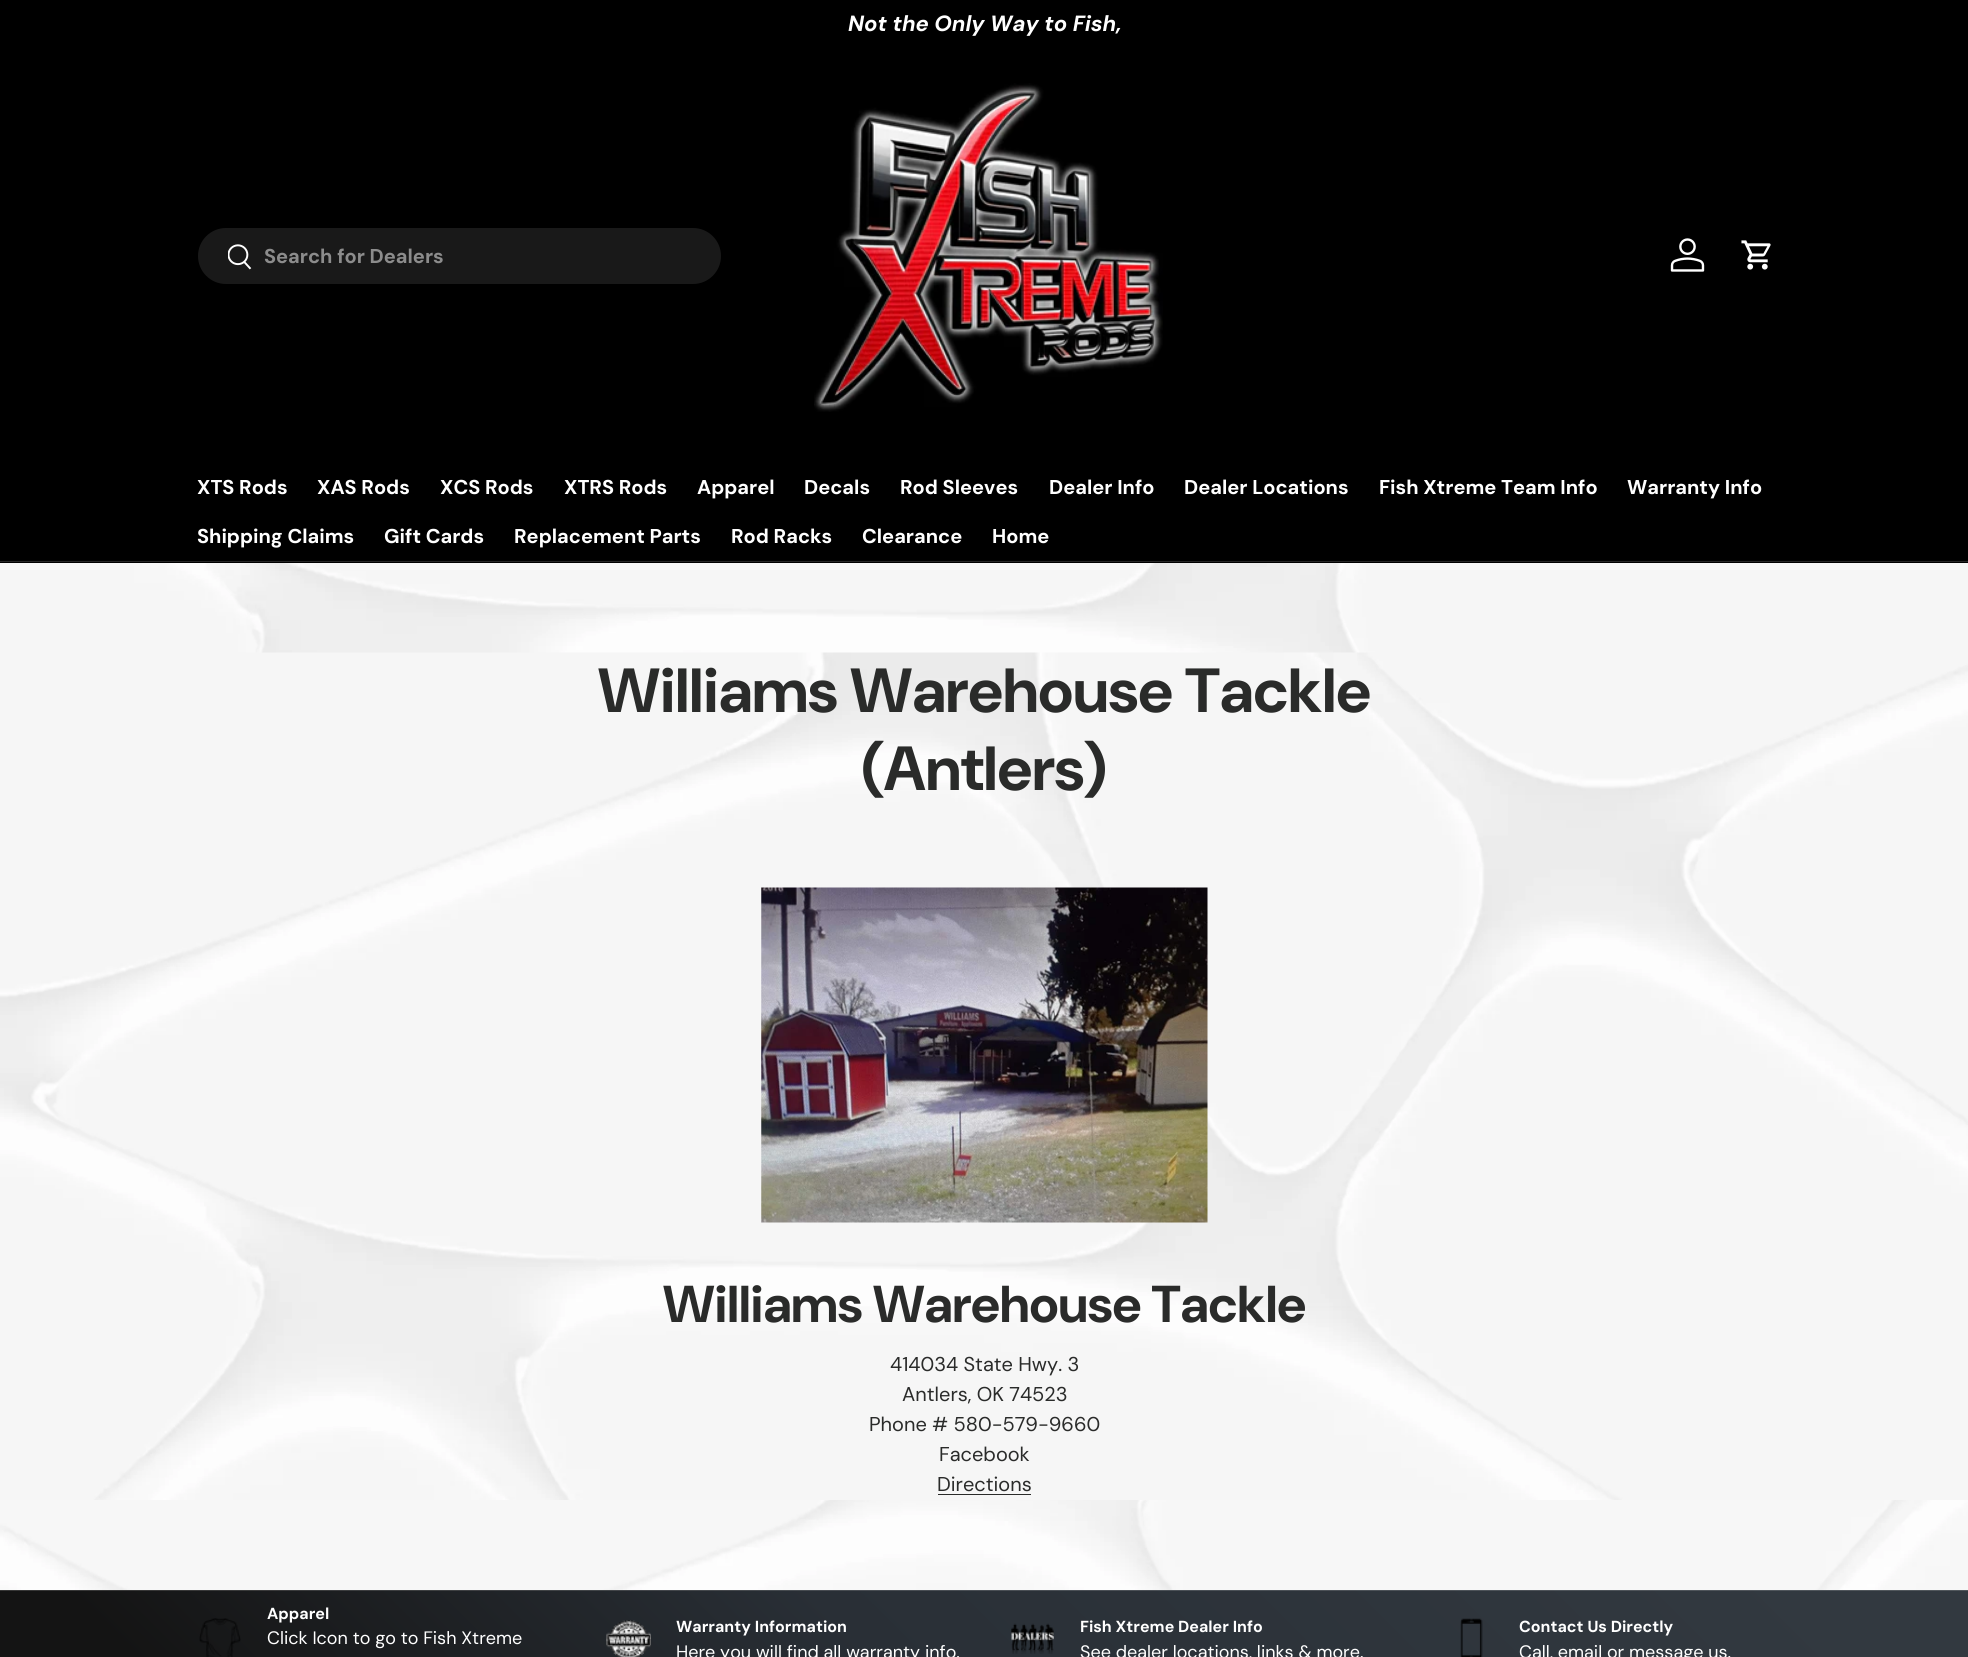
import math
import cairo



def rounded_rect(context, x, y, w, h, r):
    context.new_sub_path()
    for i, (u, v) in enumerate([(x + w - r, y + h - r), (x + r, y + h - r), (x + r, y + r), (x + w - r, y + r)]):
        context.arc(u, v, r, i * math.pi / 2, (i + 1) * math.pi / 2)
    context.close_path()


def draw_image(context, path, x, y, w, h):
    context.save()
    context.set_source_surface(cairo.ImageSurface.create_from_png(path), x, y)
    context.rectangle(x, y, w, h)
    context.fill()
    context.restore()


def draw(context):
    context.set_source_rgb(1, 1, 1)
    context.paint()
    draw_image(context, "images/1.png", 0, 563, 1968, 1027)
    context.set_source_rgb(0, 0, 0)
    context.rectangle(0, 0, 1968, 563)
    context.fill()
    context.set_source_rgb(38 / 255, 38 / 255, 38 / 255)
    context.rectangle(0, 561, 1968, 1)
    context.fill()
    context.set_source_rgb(25 / 255, 25 / 255, 25 / 255)
    rounded_rect(context, 198, 228, 523, 56, 28)
    context.fill()
    draw_image(context, "images/2.png", 228, 244, 24, 26)
    draw_image(context, "images/3.png", 814, 83, 349, 329)
    draw_image(context, "images/4.png", 1670, 238, 35, 34)
    draw_image(context, "images/5.png", 1741, 240, 30, 30)
    draw_image(context, "images/6.png", 0, 652, 1968, 848)
    draw_image(context, "images/7.png", 761, 887, 447, 336)
    context.set_source_rgb(42 / 255, 43 / 255, 42 / 255)
    context.rectangle(938, 1494, 93, 1)
    context.fill()
    gradient = cairo.LinearGradient(1501, 1025, 468, 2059)
    gradient.add_color_stop_rgba(0.08, 50 / 255, 57 / 255, 64 / 255, 1)
    gradient.add_color_stop_rgba(0.56, 41 / 255, 47 / 255, 54 / 255, 1)
    gradient.add_color_stop_rgba(0.92, 20 / 255, 20 / 255, 20 / 255, 1)
    context.set_source(gradient)
    context.rectangle(0, 1590, 1968, 1)
    context.fill()
    gradient = cairo.LinearGradient(1501, 1124, 468, 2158)
    gradient.add_color_stop_rgba(0.08, 50 / 255, 57 / 255, 64 / 255, 1)
    gradient.add_color_stop_rgba(0.56, 41 / 255, 47 / 255, 54 / 255, 1)
    gradient.add_color_stop_rgba(0.92, 20 / 255, 20 / 255, 20 / 255, 1)
    context.set_source(gradient)
    context.rectangle(0, 1591, 1968, 66)
    context.fill()
    context.set_source_rgba(1, 1, 1, 0.15)
    context.rectangle(0, 1590, 1968, 1)
    context.fill()
    draw_image(context, "images/8.png", 199, 1618, 42, 39)
    draw_image(context, "images/9.png", 606, 1620, 45, 37)
    draw_image(context, "images/10.png", 1011, 1623, 43, 31)
    draw_image(context, "images/11.png", 1460, 1618, 23, 39)
    context.select_font_face("DM Sans", cairo.FontSlant.ITALIC, cairo.FontWeight.BOLD)
    context.set_font_size(22)
    context.set_source_rgb(1, 1, 1)
    context.move_to(848, 31)
    context.show_text("Not the Only Way to Fish,")
    context.select_font_face("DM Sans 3", cairo.FontSlant.NORMAL, cairo.FontWeight.BOLD)
    context.set_font_size(20)
    context.set_source_rgb(140 / 255, 140 / 255, 140 / 255)
    context.move_to(264, 263)
    context.show_text("Search for Dealers")
    context.set_source_rgb(1, 1, 1)
    context.move_to(197, 494)
    context.show_text("XTS Rods")
    context.move_to(317, 494)
    context.show_text("XAS Rods")
    context.move_to(440, 494)
    context.show_text("XCS Rods")
    context.move_to(564, 494)
    context.show_text("XTRS Rods")
    context.move_to(697, 494)
    context.show_text("Apparel")
    context.move_to(804, 494)
    context.show_text("Decals")
    context.move_to(900, 494)
    context.show_text("Rod Sleeves")
    context.move_to(1049, 494)
    context.show_text("Dealer Info")
    context.move_to(1184, 494)
    context.show_text("Dealer Locations")
    context.move_to(1379, 494)
    context.show_text("Fish Xtreme Team Info")
    context.move_to(1627, 494)
    context.show_text("Warranty Info")
    context.move_to(197, 543)
    context.show_text("Shipping Claims")
    context.move_to(384, 543)
    context.show_text("Gift Cards")
    context.move_to(514, 543)
    context.show_text("Replacement Parts")
    context.move_to(731, 543)
    context.show_text("Rod Racks")
    context.move_to(862, 543)
    context.show_text("Clearance")
    context.move_to(992, 543)
    context.show_text("Home")
    context.select_font_face("DM Sans", cairo.FontSlant.NORMAL, cairo.FontWeight.BOLD)
    context.set_font_size(62.25)
    context.set_source_rgb(42 / 255, 43 / 255, 42 / 255)
    context.move_to(598, 712)
    context.show_text("Williams Warehouse Tackle")
    context.move_to(861, 790)
    context.show_text("(Antlers)")
    context.set_font_size(51.8)
    context.move_to(663, 1322)
    context.show_text("Williams Warehouse Tackle")
    context.select_font_face("DM Sans")
    context.set_font_size(20)
    context.move_to(890, 1371)
    context.show_text("414034 State Hwy. 3")
    context.move_to(902, 1401)
    context.show_text("Antlers, OK 74523")
    context.move_to(869, 1431)
    context.show_text("Phone # 580-579-9660")
    context.move_to(939, 1461)
    context.show_text("Facebook")
    context.move_to(937, 1491)
    context.show_text("Directions")
    context.select_font_face("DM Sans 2", cairo.FontSlant.NORMAL, cairo.FontWeight.BOLD)
    context.set_font_size(16)
    context.set_source_rgb(1, 1, 1)
    context.move_to(267, 1619)
    context.show_text("Apparel")
    context.select_font_face("DM Sans 2")
    context.set_font_size(18)
    context.move_to(267, 1644)
    context.show_text("Click Icon to go to Fish Xtreme")
    context.select_font_face("DM Sans 2", cairo.FontSlant.NORMAL, cairo.FontWeight.BOLD)
    context.set_font_size(16)
    context.move_to(676, 1632)
    context.show_text("Warranty Information")
    context.select_font_face("DM Sans 2")
    context.set_font_size(18)
    context.move_to(676, 1658)
    context.show_text("Here you will find all warranty info.")
    context.select_font_face("DM Sans 2", cairo.FontSlant.NORMAL, cairo.FontWeight.BOLD)
    context.set_font_size(16)
    context.move_to(1080, 1632)
    context.show_text("Fish Xtreme Dealer Info")
    context.select_font_face("DM Sans 2")
    context.set_font_size(18)
    context.move_to(1080, 1658)
    context.show_text("See dealer locations, links & more.")
    context.select_font_face("DM Sans 2", cairo.FontSlant.NORMAL, cairo.FontWeight.BOLD)
    context.set_font_size(16)
    context.move_to(1519, 1632)
    context.show_text("Contact Us Directly")
    context.select_font_face("DM Sans 2")
    context.set_font_size(18)
    context.move_to(1519, 1658)
    context.show_text("Call, email or message us.")


surface = cairo.ImageSurface(cairo.Format.RGB24, 1968, 1657)
context = cairo.Context(surface)
options = cairo.FontOptions()
options.set_hint_metrics(cairo.HintMetrics.OFF)
options.set_hint_style(cairo.HintStyle.NONE)
context.set_font_options(options)
context.set_miter_limit(4)
draw(context)
surface.write_to_png("out.png")
